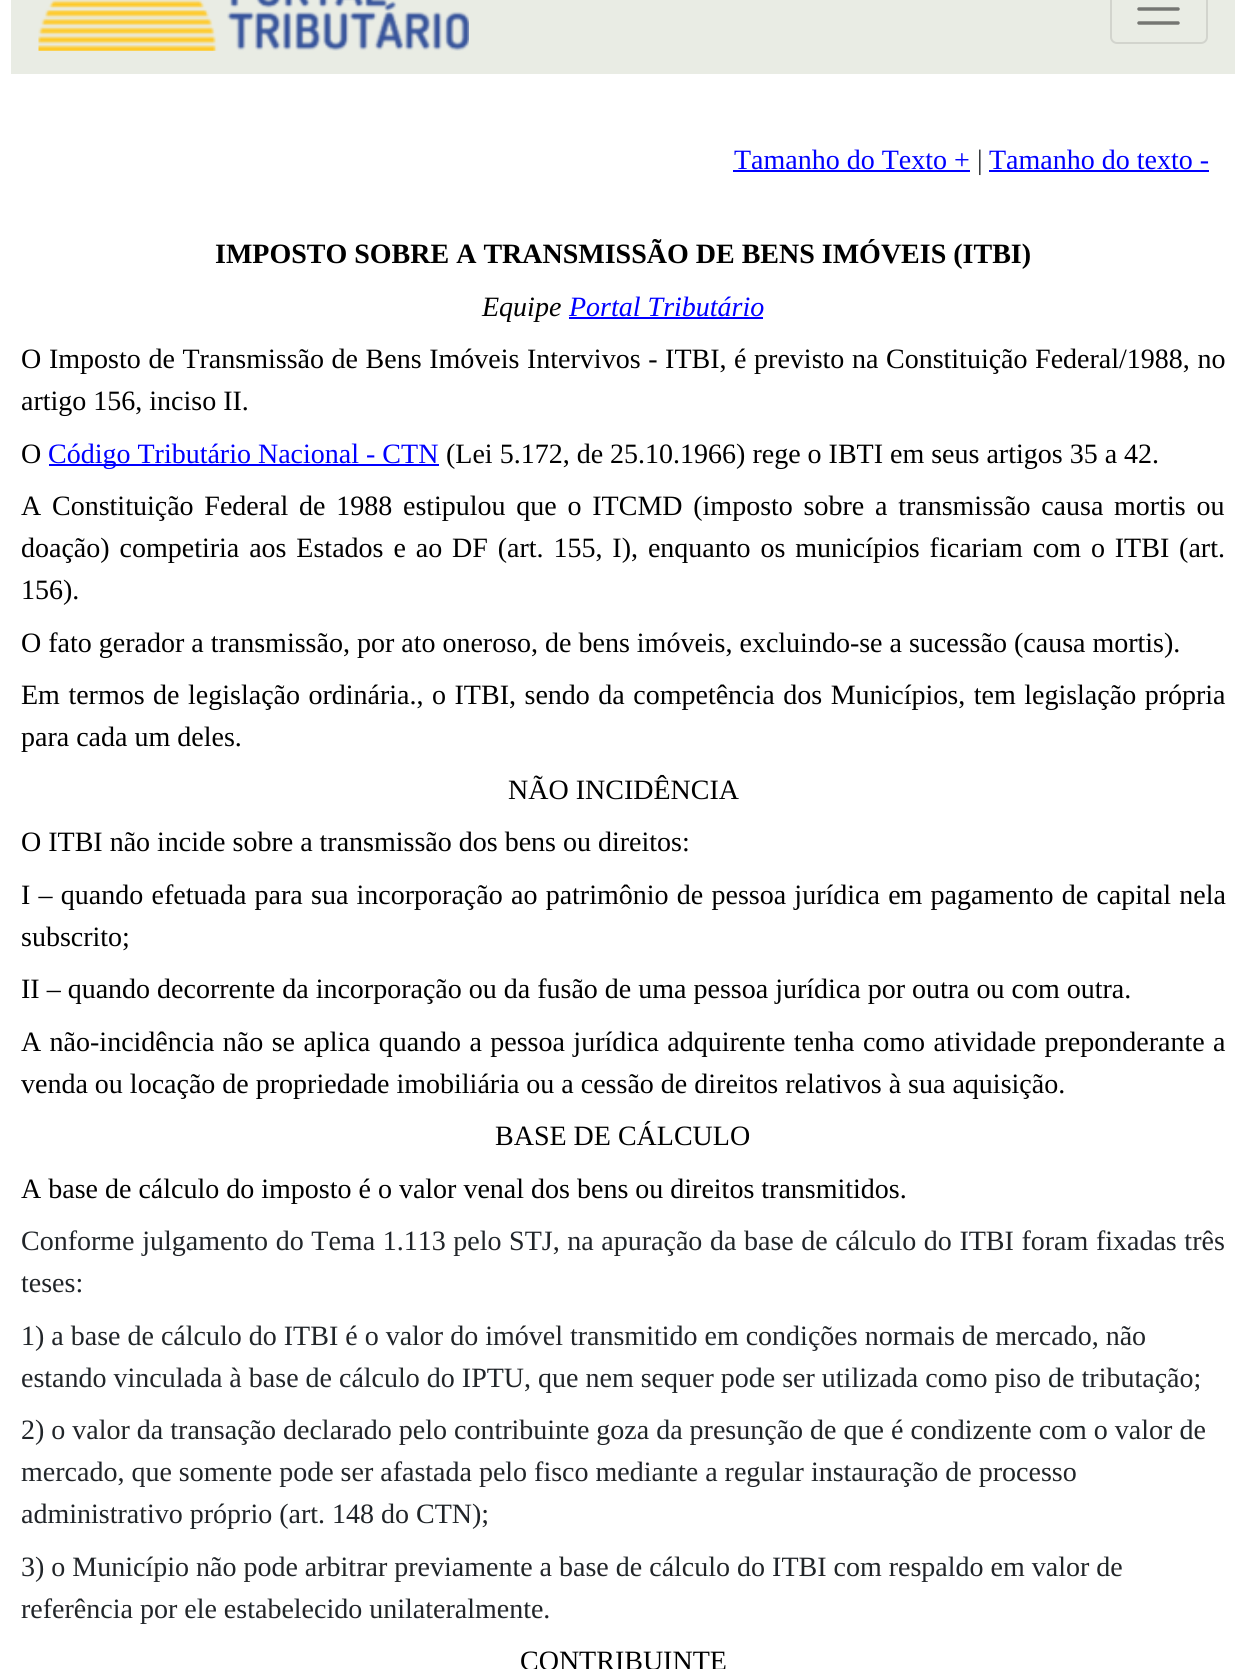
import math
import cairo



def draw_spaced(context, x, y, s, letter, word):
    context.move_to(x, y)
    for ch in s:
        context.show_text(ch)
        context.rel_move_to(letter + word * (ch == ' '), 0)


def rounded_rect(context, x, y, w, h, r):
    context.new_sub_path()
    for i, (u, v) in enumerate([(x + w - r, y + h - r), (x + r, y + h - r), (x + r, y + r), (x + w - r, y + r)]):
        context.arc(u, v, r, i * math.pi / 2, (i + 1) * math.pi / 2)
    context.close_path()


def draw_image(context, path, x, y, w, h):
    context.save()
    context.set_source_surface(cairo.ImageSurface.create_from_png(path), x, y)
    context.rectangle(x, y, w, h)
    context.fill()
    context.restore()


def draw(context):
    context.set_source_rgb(1, 1, 1)
    context.paint()
    context.set_source_rgb(233 / 255, 236 / 255, 228 / 255)
    context.rectangle(11, 0, 1224, 74)
    context.fill()
    draw_image(context, "images/1.png", 38, 0, 431, 51)
    rounded_rect(context, 1111, -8, 96, 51, 6)
    context.set_source_rgb(210 / 255, 212 / 255, 205 / 255)
    context.stroke()
    context.new_path()
    context.move_to(1139, -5)
    context.line_to(1178, -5)
    context.move_to(1139, 9)
    context.line_to(1178, 9)
    context.move_to(1139, 23)
    context.line_to(1178, 23)
    context.set_source_rgb(117 / 255, 118 / 255, 114 / 255)
    context.set_line_width(3.5)
    context.set_line_cap(cairo.LineCap.ROUND)
    context.stroke()
    context.set_source_rgb(0, 0, 1)
    context.rectangle(733, 170, 237, 2)
    context.fill()
    context.rectangle(989, 170, 220, 2)
    context.fill()
    context.rectangle(569, 317, 194, 2)
    context.fill()
    context.rectangle(49, 464, 390, 2)
    context.fill()
    context.select_font_face("Liberation Serif")
    context.set_font_size(28)
    context.move_to(734, 169)
    context.show_text("Tamanho do Texto +")
    context.set_source_rgb(33 / 255, 37 / 255, 41 / 255)
    context.move_to(977, 169)
    context.show_text("|")
    context.set_source_rgb(0, 0, 1)
    context.move_to(989, 169)
    context.show_text("Tamanho do texto -")
    context.select_font_face("Liberation Serif", cairo.FontSlant.NORMAL, cairo.FontWeight.BOLD)
    context.set_source_rgb(0, 0, 0)
    context.move_to(215, 263)
    context.show_text("IMPOSTO SOBRE A TRANSMISSÃO DE BENS IMÓVEIS (ITBI)")
    context.select_font_face("Liberation Serif", cairo.FontSlant.ITALIC)
    context.move_to(482, 316)
    context.show_text("Equipe")
    context.set_source_rgb(0, 0, 1)
    context.move_to(569, 316)
    context.show_text("Portal Tributário")
    context.select_font_face("Liberation Serif")
    context.set_source_rgb(0, 0, 0)
    context.move_to(21, 368)
    context.show_text("O")
    draw_spaced(context, 49, 368, "Imposto de Transmissão de Bens Imóveis Intervivos - ITBI, é previsto na Constituição Federal/1988, no", 0, 0.6)
    context.move_to(21, 410)
    context.show_text("artigo 156, inciso II.")
    context.move_to(21, 463)
    context.show_text("O")
    context.set_source_rgb(0, 0, 1)
    context.move_to(48, 463)
    context.show_text("Código Tributário Nacional - CTN")
    context.set_source_rgb(0, 0, 0)
    context.move_to(446, 463)
    context.show_text("(Lei 5.172, de 25.10.1966) rege o IBTI em seus artigos 35 a 42.")
    context.move_to(21, 515)
    context.show_text("A")
    draw_spaced(context, 52, 515, "Constituição Federal de 1988 estipulou que o ITCMD (imposto sobre a transmissão causa mortis ou", 0, 3.75)
    draw_spaced(context, 21, 557, "doação) competiria aos Estados e ao DF (art. 155, I), enquanto os municípios ficariam com o ITBI (art.", 0, 2.9)
    context.move_to(21, 599)
    context.show_text("156).")
    context.move_to(21, 652)
    context.show_text("O fato gerador a transmissão, por ato oneroso, de bens imóveis, excluindo-se a sucessão (causa mortis).")
    draw_spaced(context, 21, 704, "Em termos de legislação ordinária., o ITBI, sendo da competência dos Municípios, tem legislação própria", 0, 1.5)
    context.move_to(21, 746)
    context.show_text("para cada um deles.")
    context.move_to(508, 799)
    context.show_text("NÃO INCIDÊNCIA")
    context.move_to(21, 851)
    context.show_text("O ITBI não incide sobre a transmissão dos bens ou direitos:")
    draw_spaced(context, 21, 904, "I – quando efetuada para sua incorporação ao patrimônio de pessoa jurídica em pagamento de capital nela", 0, 1.25)
    context.move_to(21, 946)
    context.show_text("subscrito;")
    context.move_to(21, 998)
    context.show_text("II – quando decorrente da incorporação ou da fusão de uma pessoa jurídica por outra ou com outra.")
    draw_spaced(context, 21, 1051, "A não-incidência não se aplica quando a pessoa jurídica adquirente tenha como atividade preponderante a", 0, 1.4)
    context.move_to(21, 1093)
    context.show_text("venda ou locação de propriedade imobiliária ou a cessão de direitos relativos à sua aquisição.")
    context.move_to(495, 1145)
    context.show_text("BASE DE CÁLCULO")
    context.move_to(21, 1198)
    context.show_text("A base de cálculo do imposto é o valor venal dos bens ou direitos transmitidos.")
    context.set_source_rgb(33 / 255, 37 / 255, 41 / 255)
    draw_spaced(context, 21, 1250, "Conforme julgamento do Tema 1.113 pelo STJ, na apuração da base de cálculo do ITBI foram fixadas três", 0, 0.6)
    context.move_to(21, 1292)
    context.show_text("teses:")
    context.move_to(21, 1345)
    context.show_text("1) a base de cálculo do ITBI é o valor do imóvel transmitido em condições normais de mercado, não")
    context.move_to(21, 1387)
    context.show_text("estando vinculada à base de cálculo do IPTU, que nem sequer pode ser utilizada como piso de tributação;")
    context.move_to(21, 1439)
    context.show_text("2) o valor da transação declarado pelo contribuinte goza da presunção de que é condizente com o valor de")
    context.move_to(21, 1481)
    context.show_text("mercado, que somente pode ser afastada pelo fisco mediante a regular instauração de processo")
    context.move_to(21, 1523)
    context.show_text("administrativo próprio (art. 148 do CTN);")
    context.move_to(21, 1576)
    context.show_text("3) o Município não pode arbitrar previamente a base de cálculo do ITBI com respaldo em valor de")
    context.move_to(21, 1618)
    context.show_text("referência por ele estabelecido unilateralmente.")
    context.set_source_rgb(0, 0, 0)
    context.move_to(520, 1670)
    context.show_text("CONTRIBUINTE")


surface = cairo.ImageSurface(cairo.Format.RGB24, 1235, 1669)
context = cairo.Context(surface)
options = cairo.FontOptions()
options.set_hint_metrics(cairo.HintMetrics.OFF)
options.set_hint_style(cairo.HintStyle.NONE)
context.set_font_options(options)
context.set_miter_limit(4)
draw(context)
surface.write_to_png("out.png")
